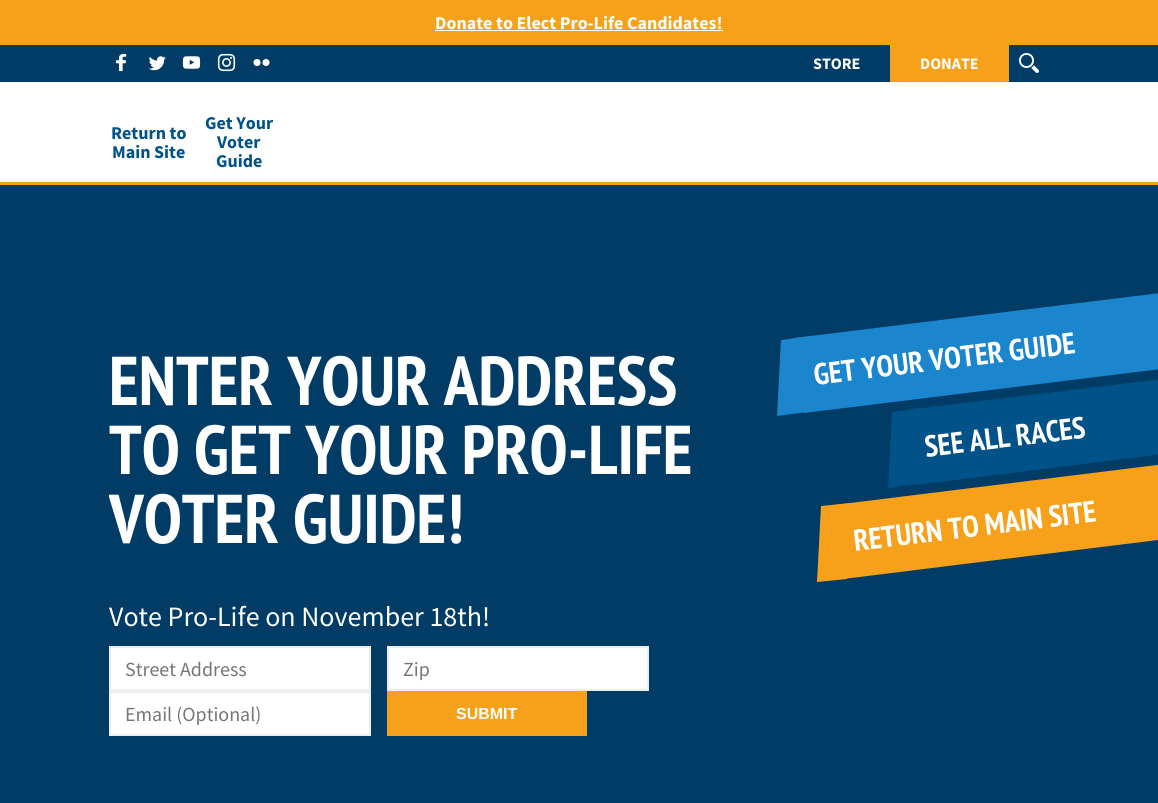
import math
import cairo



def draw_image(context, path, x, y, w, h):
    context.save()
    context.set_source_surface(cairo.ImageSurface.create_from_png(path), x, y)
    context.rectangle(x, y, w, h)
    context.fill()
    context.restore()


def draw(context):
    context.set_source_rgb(1, 1, 1)
    context.paint()
    context.set_source_rgb(247 / 255, 161 / 255, 26 / 255)
    context.rectangle(0, 0, 1158, 45)
    context.fill()
    context.set_source_rgb(1, 1, 1)
    context.rectangle(435, 30, 288, 1)
    context.fill()
    context.set_source_rgb(0, 60 / 255, 102 / 255)
    context.rectangle(0, 45, 1158, 37)
    context.fill()
    draw_image(context, "images/1.png", 116, 53, 11, 19)
    draw_image(context, "images/2.png", 149, 56, 17, 15)
    draw_image(context, "images/3.png", 182, 56, 19, 13)
    draw_image(context, "images/4.png", 217, 53, 19, 19)
    context.set_source_rgb(1, 1, 1)
    context.arc(257, 62.5, 3.5, 0, 2 * math.pi)
    context.fill()
    context.arc(266, 62.5, 3.5, 0, 2 * math.pi)
    context.fill()
    context.set_source_rgb(247 / 255, 161 / 255, 26 / 255)
    context.rectangle(890, 45, 119, 37)
    context.fill()
    draw_image(context, "images/5.png", 1019, 53, 20, 20)
    context.rectangle(0, 182, 1158, 3)
    context.fill()
    context.set_source_rgb(0, 60 / 255, 102 / 255)
    context.rectangle(0, 185, 1158, 618)
    context.fill()
    context.set_source_rgb(1, 1, 1)
    context.rectangle(110, 647, 260, 43)
    context.fill_preserve()
    context.set_source_rgb(238 / 255, 238 / 255, 238 / 255)
    context.stroke()
    context.set_source_rgb(1, 1, 1)
    context.rectangle(388, 647, 260, 43)
    context.fill_preserve()
    context.set_source_rgb(238 / 255, 238 / 255, 238 / 255)
    context.stroke()
    context.set_source_rgb(1, 1, 1)
    context.rectangle(110, 692, 260, 43)
    context.fill_preserve()
    context.set_source_rgb(238 / 255, 238 / 255, 238 / 255)
    context.stroke()
    context.set_source_rgb(247 / 255, 161 / 255, 26 / 255)
    context.rectangle(387, 691, 200, 45)
    context.fill()
    context.set_source_rgb(27 / 255, 133 / 255, 206 / 255)
    context.new_path()
    context.move_to(794, 338)
    context.line_to(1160, 293)
    context.line_to(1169, 368)
    context.line_to(804, 413)
    context.close_path()
    context.fill()
    context.new_path()
    context.move_to(781, 340)
    context.line_to(811, 336)
    context.line_to(807, 412)
    context.line_to(777, 416)
    context.close_path()
    context.fill()
    context.select_font_face("Source Sans Pro", cairo.FontSlant.NORMAL, cairo.FontWeight.BOLD)
    context.set_font_size(18)
    context.set_source_rgb(1, 1, 1)
    context.move_to(435, 29)
    context.show_text("Donate to Elect Pro-Life Candidates!")
    context.set_font_size(16)
    context.move_to(813, 69)
    context.show_text("STORE")
    context.move_to(920, 69)
    context.show_text("DONATE")
    context.set_font_size(18)
    context.set_source_rgb(0, 82 / 255, 136 / 255)
    context.move_to(111, 139)
    context.show_text("Return to")
    context.move_to(112, 158)
    context.show_text("Main Site")
    context.move_to(205, 129)
    context.show_text("Get Your")
    context.move_to(217, 148)
    context.show_text("Voter")
    context.move_to(216, 167)
    context.show_text("Guide")
    context.select_font_face("PT Sans Narrow", cairo.FontSlant.NORMAL, cairo.FontWeight.BOLD)
    context.set_font_size(69)
    context.set_source_rgb(1, 1, 1)
    context.move_to(109, 405)
    context.show_text("ENTER YOUR ADDRESS")
    context.move_to(109, 474)
    context.show_text("TO GET YOUR PRO-LIFE")
    context.save()
    context.rectangle(109, 225, 620, 511)
    context.clip()
    context.move_to(109, 543)
    context.show_text("VOTER GUIDE!")
    context.restore()
    context.select_font_face("Source Sans Pro")
    context.set_font_size(28)
    context.move_to(109, 626)
    context.show_text("Vote Pro-Life on November 18th!")
    context.set_font_size(20)
    context.set_source_rgb(117 / 255, 117 / 255, 117 / 255)
    context.move_to(125, 676)
    context.show_text("Street Address")
    context.move_to(403, 676)
    context.show_text("Zip")
    context.move_to(125, 721)
    context.show_text("Email (Optional)")
    context.select_font_face("Liberation Sans", cairo.FontSlant.NORMAL, cairo.FontWeight.BOLD)
    context.set_font_size(16)
    context.set_source_rgb(1, 1, 1)
    context.move_to(456, 719)
    context.show_text("SUBMIT")
    context.select_font_face("PT Sans Narrow", cairo.FontSlant.NORMAL, cairo.FontWeight.BOLD)
    context.set_font_size(30)
    context.save()
    context.translate(815, 385)
    context.rotate(-7 * math.pi / 180)
    context.move_to(0, 0)
    context.show_text("GET YOUR VOTER GUIDE")
    context.restore()
    context.set_source_rgb(0, 82 / 255, 136 / 255)
    context.new_path()
    context.move_to(906, 410)
    context.line_to(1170, 378)
    context.line_to(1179, 452)
    context.line_to(915, 485)
    context.close_path()
    context.fill()
    context.new_path()
    context.move_to(892, 412)
    context.line_to(922, 408)
    context.line_to(918, 484)
    context.line_to(888, 488)
    context.close_path()
    context.fill()
    context.set_source_rgb(1, 1, 1)
    context.save()
    context.translate(926, 457)
    context.rotate(-7 * math.pi / 180)
    context.move_to(0, 0)
    context.show_text("SEE ALL RACES")
    context.restore()
    context.set_source_rgb(247 / 255, 161 / 255, 26 / 255)
    context.new_path()
    context.move_to(834, 505)
    context.line_to(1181, 462)
    context.line_to(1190, 536)
    context.line_to(843, 579)
    context.close_path()
    context.fill()
    context.new_path()
    context.move_to(821, 506)
    context.line_to(851, 503)
    context.line_to(847, 579)
    context.line_to(817, 582)
    context.close_path()
    context.fill()
    context.set_source_rgb(1, 1, 1)
    context.save()
    context.translate(855, 551)
    context.rotate(-7 * math.pi / 180)
    context.move_to(0, 0)
    context.show_text("RETURN TO MAIN SITE")
    context.restore()


surface = cairo.ImageSurface(cairo.Format.RGB24, 1158, 803)
context = cairo.Context(surface)
options = cairo.FontOptions()
options.set_hint_metrics(cairo.HintMetrics.OFF)
options.set_hint_style(cairo.HintStyle.NONE)
context.set_font_options(options)
context.set_miter_limit(4)
draw(context)
surface.write_to_png("out.png")
